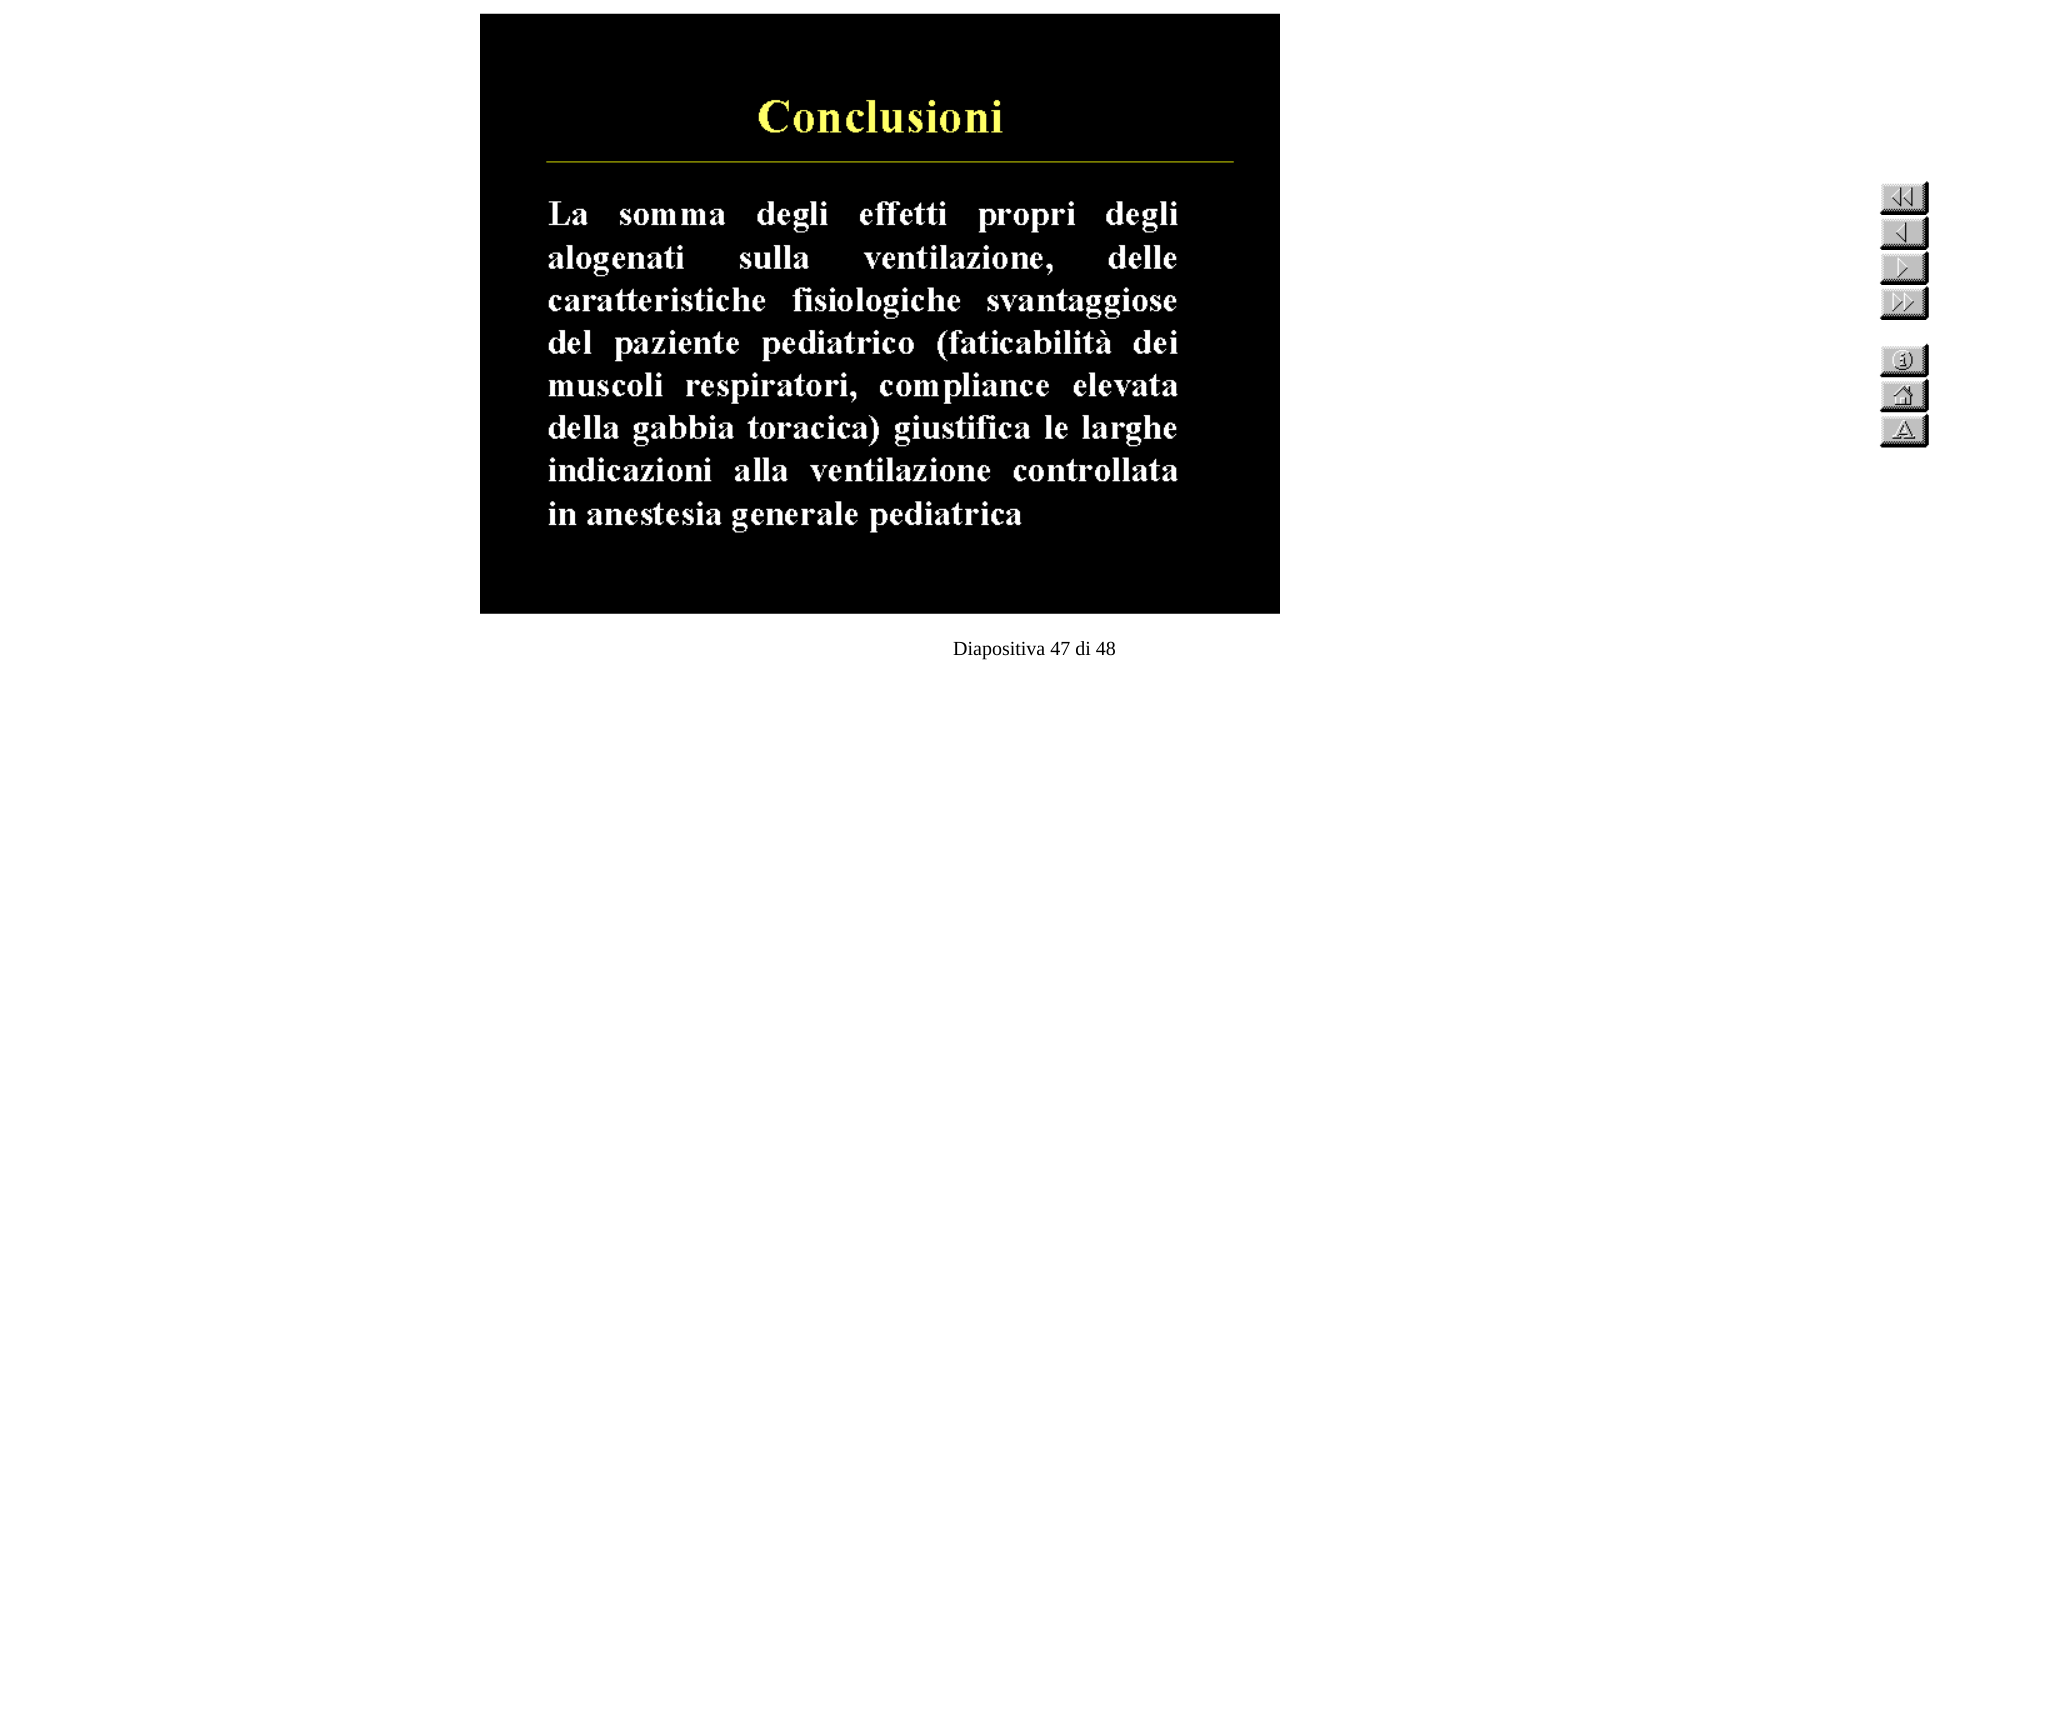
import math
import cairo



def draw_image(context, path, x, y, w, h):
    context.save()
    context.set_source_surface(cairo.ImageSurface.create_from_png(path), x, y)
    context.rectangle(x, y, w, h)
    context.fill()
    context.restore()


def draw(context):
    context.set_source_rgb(1, 1, 1)
    context.paint()
    draw_image(context, "images/1.png", 480, 13, 800, 601)
    draw_image(context, "images/2.png", 1879, 181, 50, 34)
    draw_image(context, "images/3.png", 1879, 216, 50, 34)
    draw_image(context, "images/4.png", 1879, 251, 50, 34)
    draw_image(context, "images/5.png", 1879, 286, 50, 34)
    draw_image(context, "images/6.png", 1879, 343, 50, 35)
    draw_image(context, "images/7.png", 1879, 377, 50, 36)
    draw_image(context, "images/8.png", 1879, 412, 50, 36)
    context.select_font_face("Liberation Serif")
    context.set_font_size(20)
    context.set_source_rgb(0, 0, 0)
    context.move_to(953, 655)
    context.show_text("Diapositiva 47 di 48")


surface = cairo.ImageSurface(cairo.Format.RGB24, 2068, 1732)
context = cairo.Context(surface)
options = cairo.FontOptions()
options.set_hint_metrics(cairo.HintMetrics.OFF)
options.set_hint_style(cairo.HintStyle.NONE)
context.set_font_options(options)
context.set_miter_limit(4)
draw(context)
surface.write_to_png("out.png")
